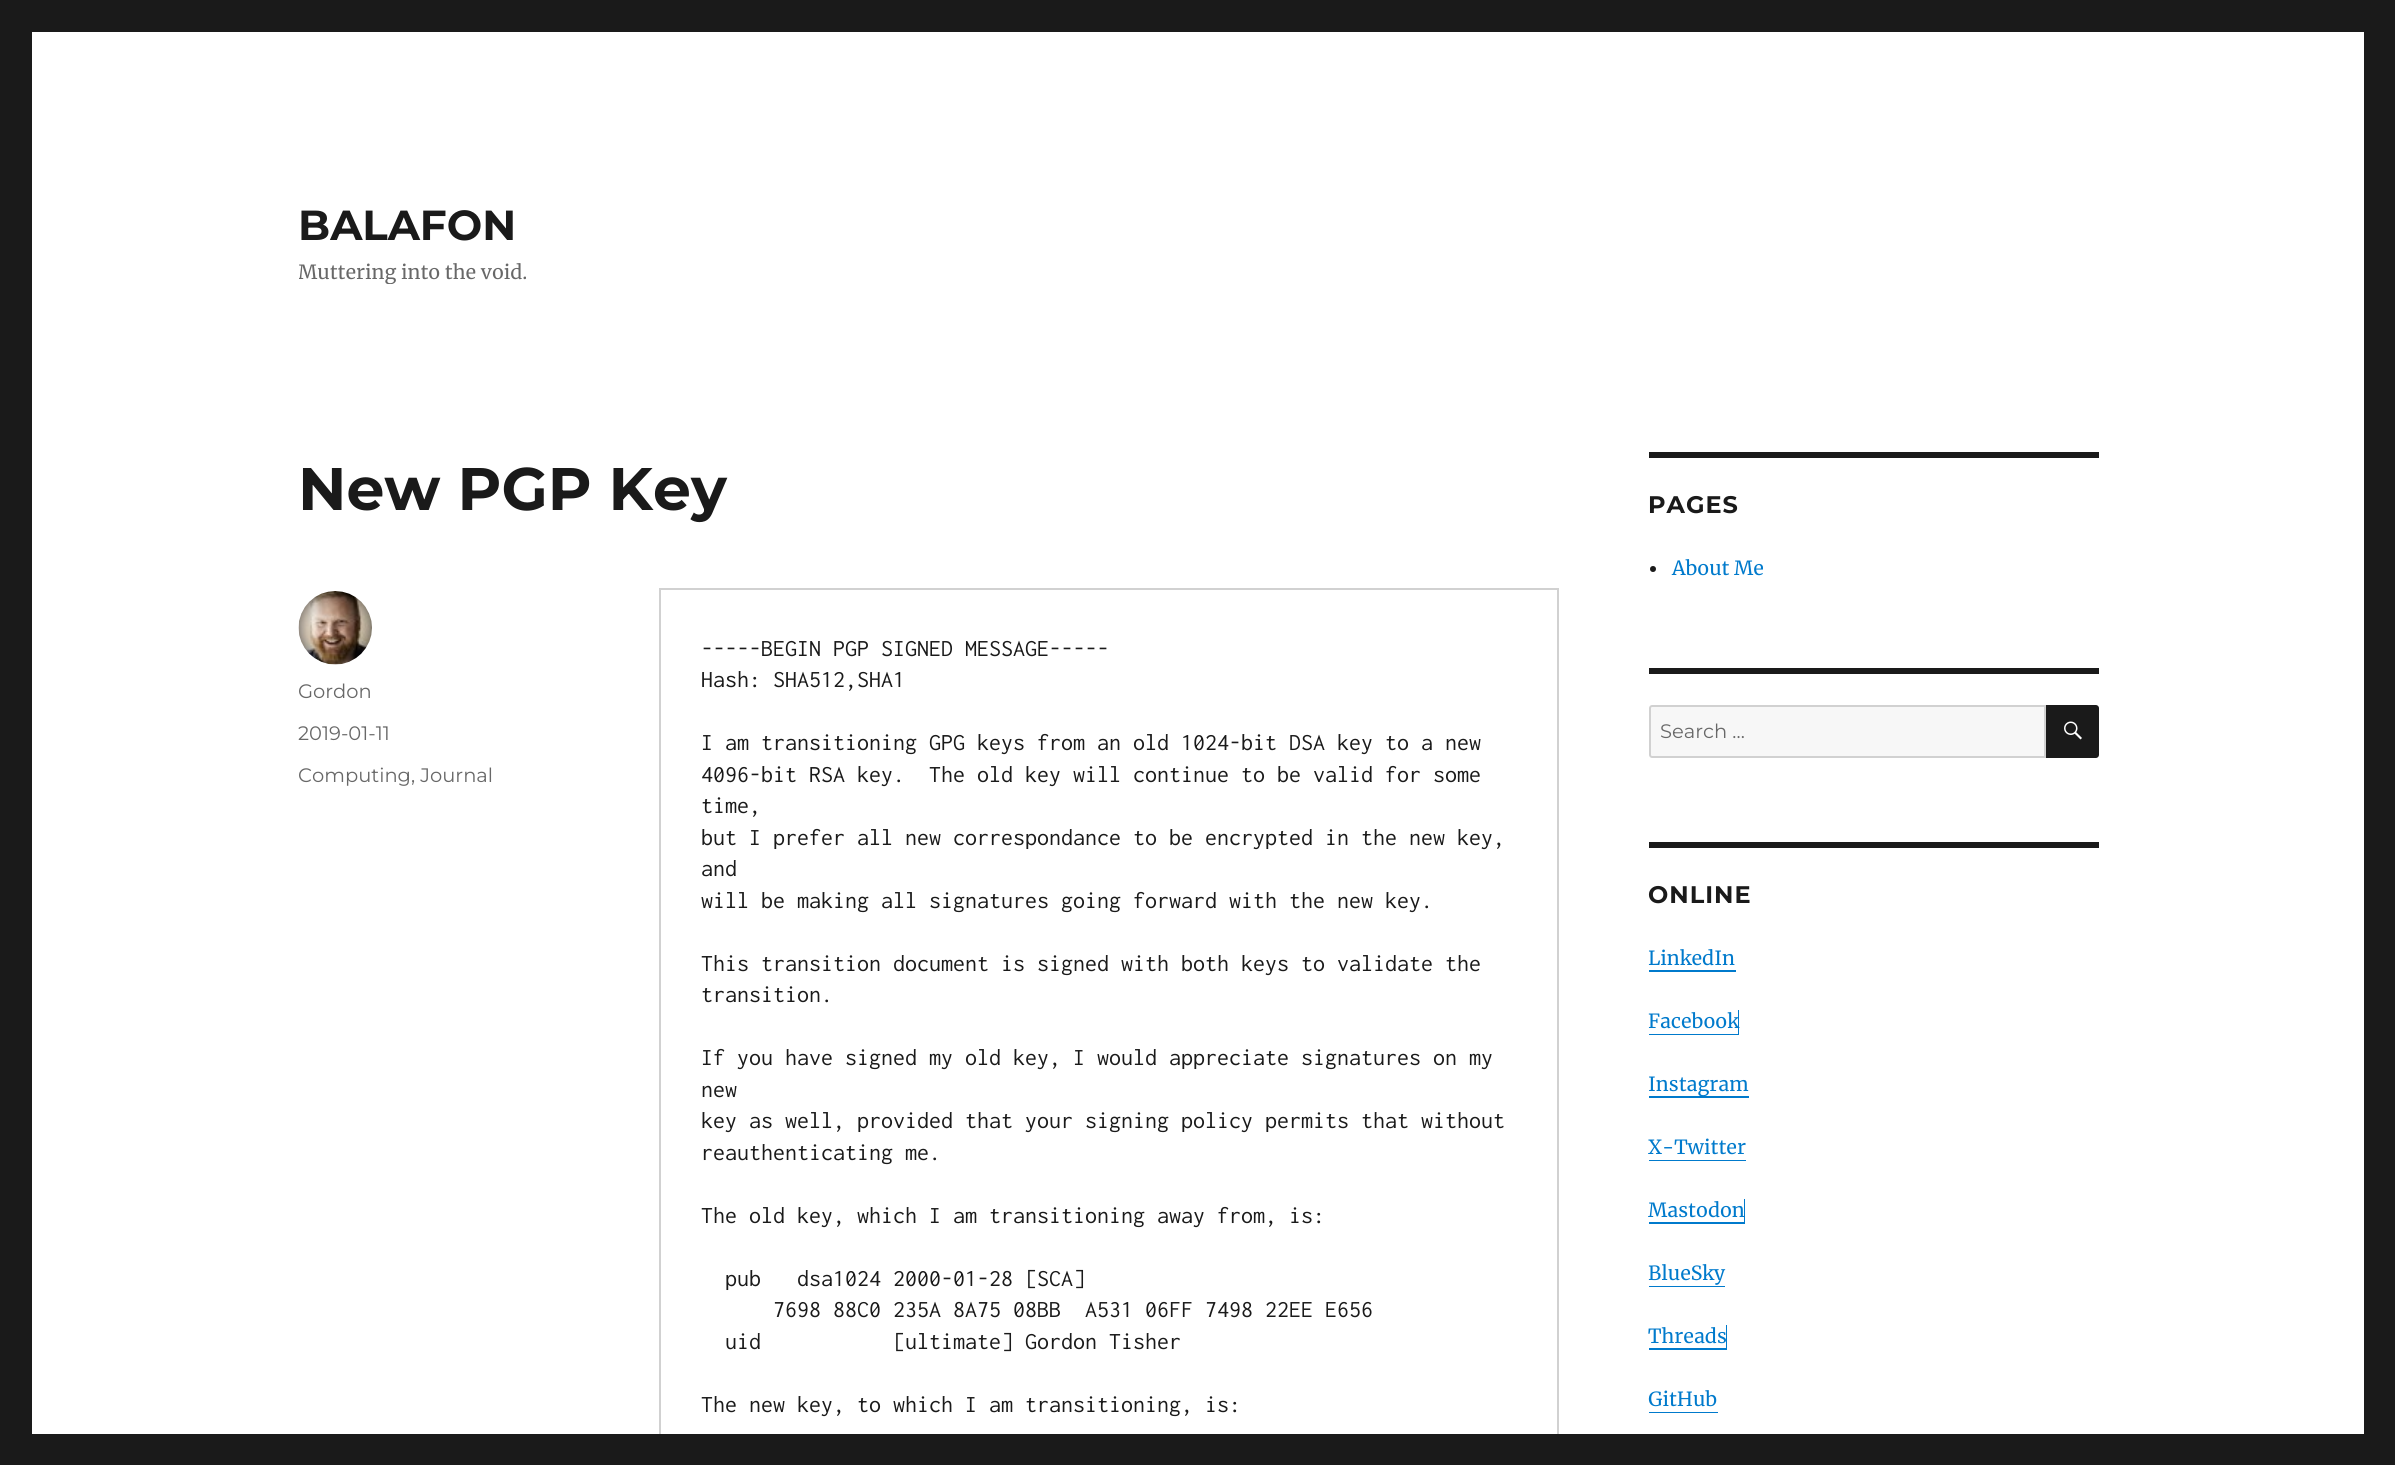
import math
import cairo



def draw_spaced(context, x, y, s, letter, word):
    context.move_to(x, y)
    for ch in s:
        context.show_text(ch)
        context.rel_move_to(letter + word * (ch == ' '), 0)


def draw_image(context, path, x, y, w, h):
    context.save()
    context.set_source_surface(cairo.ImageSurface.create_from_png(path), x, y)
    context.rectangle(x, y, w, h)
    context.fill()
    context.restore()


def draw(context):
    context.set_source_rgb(26 / 255, 26 / 255, 26 / 255)
    context.paint()
    context.set_source_rgb(1, 1, 1)
    context.rectangle(32, 32, 2332, 1402)
    context.fill()
    draw_image(context, "images/1.png", 298, 591, 74, 74)
    context.rectangle(660, 589, 898, 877)
    context.set_source_rgb(209 / 255, 209 / 255, 209 / 255)
    context.stroke()
    context.set_source_rgb(26 / 255, 26 / 255, 26 / 255)
    context.rectangle(1649, 452, 450, 6)
    context.fill()
    context.arc(1653, 569, 3, 0, 2 * math.pi)
    context.fill()
    context.rectangle(1649, 668, 450, 6)
    context.fill()
    context.set_source_rgb(247 / 255, 247 / 255, 247 / 255)
    context.new_path()
    context.move_to(1652, 706)
    context.line_to(2045, 706)
    context.line_to(2045, 757)
    context.line_to(1652, 757)
    context.curve_to(1651, 757, 1650, 756, 1650, 755)
    context.line_to(1650, 708)
    context.curve_to(1650, 707, 1651, 706, 1652, 706)
    context.close_path()
    context.fill_preserve()
    context.set_source_rgb(209 / 255, 209 / 255, 209 / 255)
    context.stroke()
    context.set_source_rgb(26 / 255, 26 / 255, 26 / 255)
    context.new_path()
    context.move_to(2046, 705)
    context.line_to(2096, 705)
    context.curve_to(2097.5, 705, 2099, 706.5, 2099, 708)
    context.line_to(2099, 755)
    context.curve_to(2099, 756.5, 2097.5, 758, 2096, 758)
    context.line_to(2046, 758)
    context.close_path()
    context.fill()
    draw_image(context, "images/2.png", 2064, 721, 18, 19)
    context.rectangle(1649, 842, 450, 6)
    context.fill()
    context.set_source_rgb(0, 122 / 255, 204 / 255)
    context.new_path()
    context.move_to(1649, 970)
    context.line_to(1649, 972)
    context.line_to(1736, 972)
    context.line_to(1736, 947)
    context.line_to(1736, 970)
    context.close_path()
    context.fill()
    context.new_path()
    context.move_to(1649, 1034)
    context.line_to(1649, 1035)
    context.line_to(1739, 1035)
    context.line_to(1739, 1010)
    context.line_to(1738, 1010)
    context.line_to(1738, 1034)
    context.close_path()
    context.fill()
    context.rectangle(1649, 1096, 100, 2)
    context.fill()
    context.rectangle(1649, 1160, 97, 1)
    context.fill()
    context.new_path()
    context.move_to(1649, 1222)
    context.line_to(1649, 1224)
    context.line_to(1745, 1224)
    context.line_to(1745, 1199)
    context.line_to(1744, 1199)
    context.line_to(1744, 1222)
    context.close_path()
    context.fill()
    context.rectangle(1649, 1286, 76, 1)
    context.fill()
    context.new_path()
    context.move_to(1649, 1348)
    context.line_to(1649, 1350)
    context.line_to(1727, 1350)
    context.line_to(1727, 1325)
    context.line_to(1726, 1325)
    context.line_to(1726, 1348)
    context.close_path()
    context.fill()
    context.new_path()
    context.move_to(1649, 1412)
    context.line_to(1649, 1413)
    context.line_to(1718, 1413)
    context.line_to(1718, 1388)
    context.line_to(1718, 1412)
    context.close_path()
    context.fill()
    context.set_source_rgb(26 / 255, 26 / 255, 26 / 255)
    context.rectangle(659, 1434, 900, 31)
    context.fill()
    context.select_font_face("Montserrat Thin")
    context.set_font_size(42)
    context.move_to(298, 240)
    context.show_text("BALAFON")
    context.save()
    context.rectangle(299, 200, 229, 84)
    context.clip()
    context.select_font_face("Merriweather")
    context.set_font_size(19.5)
    context.set_source_rgb(104 / 255, 104 / 255, 104 / 255)
    context.move_to(298, 279)
    context.show_text("Muttering into the void.")
    context.restore()
    context.set_font_size(60)
    context.move_to(298, 510)
    context.show_text("New PGP Key")
    context.select_font_face("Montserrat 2 Thin")
    context.set_font_size(19.5)
    context.set_source_rgb(104 / 255, 104 / 255, 104 / 255)
    context.move_to(298, 698)
    context.show_text("Gordon")
    context.move_to(298, 740)
    context.show_text("2019-01-11")
    context.move_to(298, 782)
    context.show_text("Computing, Journal")
    context.select_font_face("Inconsolata")
    context.set_font_size(24)
    context.set_source_rgb(26 / 255, 26 / 255, 26 / 255)
    context.move_to(701, 656)
    context.show_text("-----BEGIN PGP SIGNED MESSAGE-----")
    context.move_to(701, 687)
    context.show_text("Hash: SHA512,SHA1")
    context.move_to(701, 750)
    context.show_text("I am transitioning GPG keys from an old 1024-bit DSA key to a new")
    context.move_to(701, 782)
    context.show_text("4096-bit RSA key.  The old key will continue to be valid for some")
    context.move_to(701, 813)
    context.show_text("time,")
    context.move_to(701, 845)
    context.show_text("but I prefer all new correspondance to be encrypted in the new key,")
    context.move_to(701, 876)
    context.show_text("and")
    context.move_to(701, 908)
    context.show_text("will be making all signatures going forward with the new key.")
    context.move_to(701, 971)
    context.show_text("This transition document is signed with both keys to validate the")
    context.move_to(701, 1002)
    context.show_text("transition.")
    context.move_to(701, 1065)
    context.show_text("If you have signed my old key, I would appreciate signatures on my")
    context.move_to(701, 1097)
    context.show_text("new")
    context.move_to(701, 1128)
    context.show_text("key as well, provided that your signing policy permits that without")
    context.move_to(701, 1160)
    context.show_text("reauthenticating me.")
    context.move_to(701, 1223)
    context.show_text("The old key, which I am transitioning away from, is:")
    context.move_to(725, 1286)
    context.show_text("pub   dsa1024 2000-01-28 [SCA]")
    context.move_to(773, 1317)
    context.show_text("7698 88C0 235A 8A75 08BB  A531 06FF 7498 22EE E656")
    context.move_to(725, 1349)
    context.show_text("uid           [ultimate] Gordon Tisher")
    context.move_to(701, 1412)
    context.show_text("The new key, to which I am transitioning, is:")
    context.select_font_face("Montserrat Thin")
    draw_spaced(context, 1648, 513, "PAGES", 1, 0)
    context.select_font_face("Merriweather")
    context.set_font_size(19.5)
    context.set_source_rgb(0, 122 / 255, 204 / 255)
    context.move_to(1672, 575)
    context.show_text("About Me")
    context.select_font_face("Montserrat 2 Thin")
    context.set_source_rgb(104 / 255, 104 / 255, 104 / 255)
    context.move_to(1660, 738)
    context.show_text("Search …")
    context.select_font_face("Montserrat Thin")
    context.set_font_size(24)
    context.set_source_rgb(26 / 255, 26 / 255, 26 / 255)
    draw_spaced(context, 1648, 903, "ONLINE", 1, 0)
    context.select_font_face("Merriweather")
    context.set_font_size(19.5)
    context.set_source_rgb(0, 122 / 255, 204 / 255)
    context.move_to(1648, 965)
    context.show_text("LinkedIn")
    context.move_to(1648, 1028)
    context.show_text("Facebook")
    context.move_to(1648, 1091)
    context.show_text("Instagram")
    context.move_to(1648, 1154)
    context.show_text("X-Twitter")
    context.move_to(1648, 1217)
    context.show_text("Mastodon")
    context.move_to(1648, 1280)
    context.show_text("BlueSky")
    context.move_to(1648, 1343)
    context.show_text("Threads")
    context.move_to(1648, 1406)
    context.show_text("GitHub")


surface = cairo.ImageSurface(cairo.Format.RGB24, 2395, 1465)
context = cairo.Context(surface)
options = cairo.FontOptions()
options.set_hint_metrics(cairo.HintMetrics.OFF)
options.set_hint_style(cairo.HintStyle.NONE)
context.set_font_options(options)
context.set_miter_limit(4)
draw(context)
surface.write_to_png("out.png")
